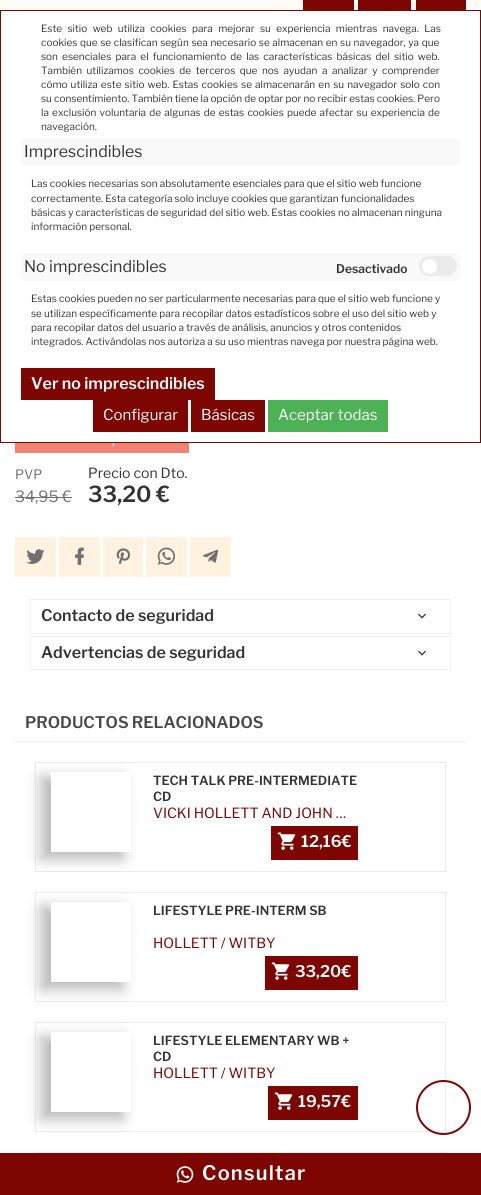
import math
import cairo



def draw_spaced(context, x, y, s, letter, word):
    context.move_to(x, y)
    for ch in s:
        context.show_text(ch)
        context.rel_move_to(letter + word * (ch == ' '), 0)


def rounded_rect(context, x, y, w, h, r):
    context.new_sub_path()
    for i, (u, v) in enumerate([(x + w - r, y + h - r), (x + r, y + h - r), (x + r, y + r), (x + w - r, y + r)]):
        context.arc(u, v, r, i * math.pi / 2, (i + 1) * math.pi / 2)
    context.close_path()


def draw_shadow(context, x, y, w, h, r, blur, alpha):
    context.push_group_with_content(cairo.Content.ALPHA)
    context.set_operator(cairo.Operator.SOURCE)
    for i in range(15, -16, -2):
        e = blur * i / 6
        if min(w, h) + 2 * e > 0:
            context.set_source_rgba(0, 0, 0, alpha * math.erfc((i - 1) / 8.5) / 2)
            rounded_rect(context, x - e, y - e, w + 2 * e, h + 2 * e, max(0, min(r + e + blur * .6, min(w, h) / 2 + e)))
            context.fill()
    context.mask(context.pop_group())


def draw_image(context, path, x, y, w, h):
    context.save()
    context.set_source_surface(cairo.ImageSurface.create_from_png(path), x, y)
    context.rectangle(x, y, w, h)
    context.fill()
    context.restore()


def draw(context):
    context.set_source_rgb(1, 1, 1)
    context.paint()
    context.set_source_rgb(1, 251 / 255, 246 / 255)
    context.rectangle(0, 0, 481, 10)
    context.fill()
    context.set_source_rgb(125 / 255, 6 / 255, 2 / 255)
    context.rectangle(358, 0, 53, 10)
    context.fill()
    context.rectangle(303, 0, 51, 10)
    context.fill()
    context.rectangle(416, 0, 50, 10)
    context.fill()
    context.rectangle(0.5, 10.5, 480, 432)
    context.set_line_width(1)
    context.stroke()
    context.set_source_rgb(249 / 255, 249 / 255, 249 / 255)
    rounded_rect(context, 21, 138, 439, 28, 5)
    context.fill()
    rounded_rect(context, 21, 253, 439, 28, 5)
    context.fill()
    context.set_source_rgb(235 / 255, 235 / 255, 235 / 255)
    rounded_rect(context, 419, 256, 38, 20, 10)
    context.fill()
    context.set_source_rgb(1, 1, 1)
    context.arc(429.5, 266.5, 7.5, 0, 2 * math.pi)
    context.fill()
    context.set_source_rgb(125 / 255, 6 / 255, 2 / 255)
    context.rectangle(21, 368, 194, 32)
    context.fill()
    context.rectangle(93, 400, 95, 32)
    context.fill()
    context.rectangle(191, 400, 74, 32)
    context.fill()
    context.set_source_rgb(77 / 255, 178 / 255, 85 / 255)
    context.rectangle(268, 400, 120, 32)
    context.fill()
    context.set_source_rgb(240 / 255, 130 / 255, 115 / 255)
    context.rectangle(15, 443, 174, 10)
    context.fill()
    context.set_source_rgb(113 / 255, 113 / 255, 112 / 255)
    context.rectangle(15, 497, 57, 1)
    context.fill()
    context.rectangle(35.5, 1152.5, 410, 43)
    context.set_source_rgb(235 / 255, 235 / 255, 235 / 255)
    context.stroke()
    context.set_source_rgb(125 / 255, 6 / 255, 2 / 255)
    context.rectangle(0, 1153, 481, 42)
    context.fill()
    draw_image(context, "images/1.png", 176, 1166, 18, 17)
    context.set_source_rgb(1, 242 / 255, 224 / 255)
    context.rectangle(15, 537, 41, 40)
    context.fill()
    draw_image(context, "images/2.png", 26, 549, 19, 15)
    context.rectangle(59, 537, 41, 40)
    context.fill()
    draw_image(context, "images/3.png", 75, 547, 9, 18)
    context.rectangle(103, 537, 40, 40)
    context.fill()
    draw_image(context, "images/4.png", 116, 548, 15, 16)
    context.rectangle(146, 537, 41, 40)
    context.fill()
    draw_image(context, "images/5.png", 157, 547, 18, 18)
    context.rectangle(190, 537, 41, 40)
    context.fill()
    draw_image(context, "images/6.png", 202, 549, 17, 14)
    context.rectangle(30.5, 599.5, 420, 34)
    context.set_source_rgb(241 / 255, 241 / 255, 241 / 255)
    context.stroke()
    draw_image(context, "images/7.png", 418, 613, 8, 6)
    context.rectangle(30.5, 636.5, 420, 33)
    context.stroke()
    draw_image(context, "images/7.png", 418, 650, 8, 6)
    context.set_source_rgb(235 / 255, 235 / 255, 235 / 255)
    context.rectangle(15, 741, 451, 1)
    context.fill()
    context.rectangle(35.5, 762.5, 410, 109)
    context.stroke()
    context.save()
    context.set_fill_rule(cairo.FillRule.EVEN_ODD)
    context.new_path()
    context.move_to(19, 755)
    context.line_to(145, 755)
    context.line_to(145, 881)
    context.line_to(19, 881)
    context.close_path()
    context.move_to(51, 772)
    context.line_to(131, 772)
    context.line_to(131, 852)
    context.line_to(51, 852)
    context.close_path()
    context.clip()
    context.set_source_rgb(185 / 255, 185 / 255, 185 / 255)
    draw_shadow(context, 41, 777, 82, 82, 0, 7, 1)
    context.restore()
    context.set_source_rgb(125 / 255, 6 / 255, 2 / 255)
    context.rectangle(271, 826, 87, 34)
    context.fill()
    draw_image(context, "images/8.png", 277, 832, 19, 18)
    context.rectangle(35.5, 892.5, 410, 109)
    context.set_source_rgb(235 / 255, 235 / 255, 235 / 255)
    context.stroke()
    context.save()
    context.set_fill_rule(cairo.FillRule.EVEN_ODD)
    context.new_path()
    context.move_to(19, 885)
    context.line_to(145, 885)
    context.line_to(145, 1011)
    context.line_to(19, 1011)
    context.close_path()
    context.move_to(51, 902)
    context.line_to(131, 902)
    context.line_to(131, 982)
    context.line_to(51, 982)
    context.close_path()
    context.clip()
    context.set_source_rgb(185 / 255, 185 / 255, 185 / 255)
    draw_shadow(context, 41, 907, 82, 82, 0, 7, 1)
    context.restore()
    context.set_source_rgb(125 / 255, 6 / 255, 2 / 255)
    context.rectangle(265, 956, 93, 34)
    context.fill()
    draw_image(context, "images/8.png", 271, 962, 19, 18)
    context.rectangle(35.5, 1022.5, 410, 109)
    context.set_source_rgb(235 / 255, 235 / 255, 235 / 255)
    context.stroke()
    context.save()
    context.set_fill_rule(cairo.FillRule.EVEN_ODD)
    context.new_path()
    context.move_to(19, 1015)
    context.line_to(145, 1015)
    context.line_to(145, 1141)
    context.line_to(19, 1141)
    context.close_path()
    context.move_to(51, 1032)
    context.line_to(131, 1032)
    context.line_to(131, 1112)
    context.line_to(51, 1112)
    context.close_path()
    context.clip()
    context.set_source_rgb(185 / 255, 185 / 255, 185 / 255)
    draw_shadow(context, 41, 1037, 82, 82, 0, 7, 1)
    context.restore()
    context.set_source_rgb(125 / 255, 6 / 255, 2 / 255)
    context.rectangle(268, 1086, 90, 34)
    context.fill()
    draw_image(context, "images/8.png", 274, 1092, 19, 18)
    context.arc(443.5, 1107.5, 26.5, 0, 2 * math.pi)
    context.set_line_width(2)
    context.stroke()
    context.select_font_face("Libre Franklin")
    context.set_font_size(10)
    context.set_source_rgb(52 / 255, 52 / 255, 51 / 255)
    draw_spaced(context, 41, 32, "Este sitio web utiliza cookies para mejorar su experiencia mientras navega. Las", 0, 3.25)
    draw_spaced(context, 41, 46, "cookies que se clasifican según sea necesario se almacenan en su navegador, ya que", 0, 0.5)
    draw_spaced(context, 41, 60, "son esenciales para el funcionamiento de las características básicas del sitio web.", 0, 2)
    draw_spaced(context, 41, 74, "También utilizamos cookies de terceros que nos ayudan a analizar y comprender", 0, 2.4)
    draw_spaced(context, 41, 88, "cómo utiliza este sitio web. Estas cookies se almacenarán en su navegador solo con", 0, 1)
    context.move_to(41, 102)
    context.show_text("su consentimiento. También tiene la opción de optar por no recibir estas cookies. Pero")
    draw_spaced(context, 41, 116, "la exclusión voluntaria de algunas de estas cookies puede afectar su experiencia de", 0, 1.1)
    context.move_to(41, 130)
    context.show_text("navegación.")
    context.set_font_size(16)
    context.move_to(24, 157)
    context.show_text("Imprescindibles")
    context.set_font_size(10)
    context.move_to(31, 187)
    context.show_text("Las cookies necesarias son absolutamente esenciales para que el sitio web funcione")
    context.move_to(31, 202)
    context.show_text("correctamente. Esta categoría solo incluye cookies que garantizan funcionalidades")
    context.move_to(31, 216)
    context.show_text("básicas y características de seguridad del sitio web. Estas cookies no almacenan ninguna")
    context.move_to(31, 230)
    context.show_text("información personal.")
    context.set_font_size(16)
    context.move_to(24, 272)
    context.show_text("No imprescindibles")
    context.select_font_face("Libre Franklin SemiBold")
    context.set_font_size(12)
    context.move_to(336, 273)
    context.show_text("Desactivado")
    context.select_font_face("Libre Franklin")
    context.set_font_size(10)
    context.move_to(31, 302)
    context.show_text("Estas cookies pueden no ser particularmente necesarias para que el sitio web funcione y")
    context.move_to(31, 317)
    context.show_text("se utilizan específicamente para recopilar datos estadísticos sobre el uso del sitio web y")
    context.move_to(31, 331)
    context.show_text("para recopilar datos del usuario a través de análisis, anuncios y otros contenidos")
    context.move_to(31, 345)
    context.show_text("integrados. Activándolas nos autoriza a su uso mientras navega por nuestra página web.")
    context.select_font_face("Libre Franklin SemiBold")
    context.set_font_size(16)
    context.set_source_rgb(1, 1, 1)
    context.move_to(31, 389)
    context.show_text("Ver no imprescindibles")
    context.select_font_face("Libre Franklin")
    context.set_font_size(15)
    context.move_to(103, 420)
    context.show_text("Configurar")
    context.move_to(201, 420)
    context.show_text("Básicas")
    context.move_to(278, 420)
    context.show_text("Aceptar todas")
    context.set_font_size(14)
    context.move_to(112, 445)
    context.show_text(",")
    context.set_font_size(13)
    context.set_source_rgb(113 / 255, 113 / 255, 112 / 255)
    context.move_to(15, 479)
    context.show_text("PVP")
    context.set_font_size(15.5)
    context.move_to(15, 502)
    context.show_text("34,95 €")
    context.set_font_size(14)
    context.set_source_rgb(52 / 255, 52 / 255, 51 / 255)
    context.move_to(88, 478)
    context.show_text("Precio con Dto.")
    context.select_font_face("Libre Franklin SemiBold")
    context.set_font_size(22)
    context.move_to(88, 502)
    context.show_text("33,20 €")
    context.set_font_size(20)
    context.set_source_rgb(1, 1, 1)
    draw_spaced(context, 202, 1180, "Consultar", 1.25, 0)
    context.set_font_size(16)
    context.set_source_rgb(52 / 255, 52 / 255, 51 / 255)
    context.move_to(41, 621)
    context.show_text("Contacto de seguridad")
    context.move_to(41, 658)
    context.show_text("Advertencias de seguridad")
    context.set_source_rgb(71 / 255, 71 / 255, 71 / 255)
    context.move_to(25, 728)
    context.show_text("PRODUCTOS RELACIONADOS")
    context.set_font_size(12.6)
    context.set_source_rgb(52 / 255, 52 / 255, 51 / 255)
    context.move_to(153, 785)
    context.show_text("TECH TALK PRE-INTERMEDIATE")
    context.move_to(153, 801)
    context.show_text("CD")
    context.select_font_face("Libre Franklin")
    context.set_font_size(14)
    context.set_source_rgb(125 / 255, 6 / 255, 2 / 255)
    context.move_to(153, 818)
    context.show_text("VICKI HOLLETT AND JOHN …")
    context.select_font_face("Libre Franklin SemiBold")
    context.set_font_size(16)
    context.set_source_rgb(1, 1, 1)
    context.move_to(301, 847)
    context.show_text("12,16€")
    context.set_font_size(12.6)
    context.set_source_rgb(52 / 255, 52 / 255, 51 / 255)
    context.move_to(153, 915)
    context.show_text("LIFESTYLE PRE-INTERM SB")
    context.select_font_face("Libre Franklin")
    context.set_font_size(14)
    context.set_source_rgb(125 / 255, 6 / 255, 2 / 255)
    context.move_to(153, 948)
    context.show_text("HOLLETT / WITBY")
    context.select_font_face("Libre Franklin SemiBold")
    context.set_font_size(16)
    context.set_source_rgb(1, 1, 1)
    context.move_to(295, 977)
    context.show_text("33,20€")
    context.set_font_size(12.6)
    context.set_source_rgb(52 / 255, 52 / 255, 51 / 255)
    context.move_to(153, 1045)
    context.show_text("LIFESTYLE ELEMENTARY WB +")
    context.move_to(153, 1061)
    context.show_text("CD")
    context.select_font_face("Libre Franklin")
    context.set_font_size(14)
    context.set_source_rgb(125 / 255, 6 / 255, 2 / 255)
    context.move_to(153, 1078)
    context.show_text("HOLLETT / WITBY")
    context.select_font_face("Libre Franklin SemiBold")
    context.set_font_size(16)
    context.set_source_rgb(1, 1, 1)
    context.move_to(298, 1107)
    context.show_text("19,57€")


surface = cairo.ImageSurface(cairo.Format.RGB24, 481, 1195)
context = cairo.Context(surface)
options = cairo.FontOptions()
options.set_hint_metrics(cairo.HintMetrics.OFF)
options.set_hint_style(cairo.HintStyle.NONE)
context.set_font_options(options)
context.set_miter_limit(4)
draw(context)
surface.write_to_png("out.png")
